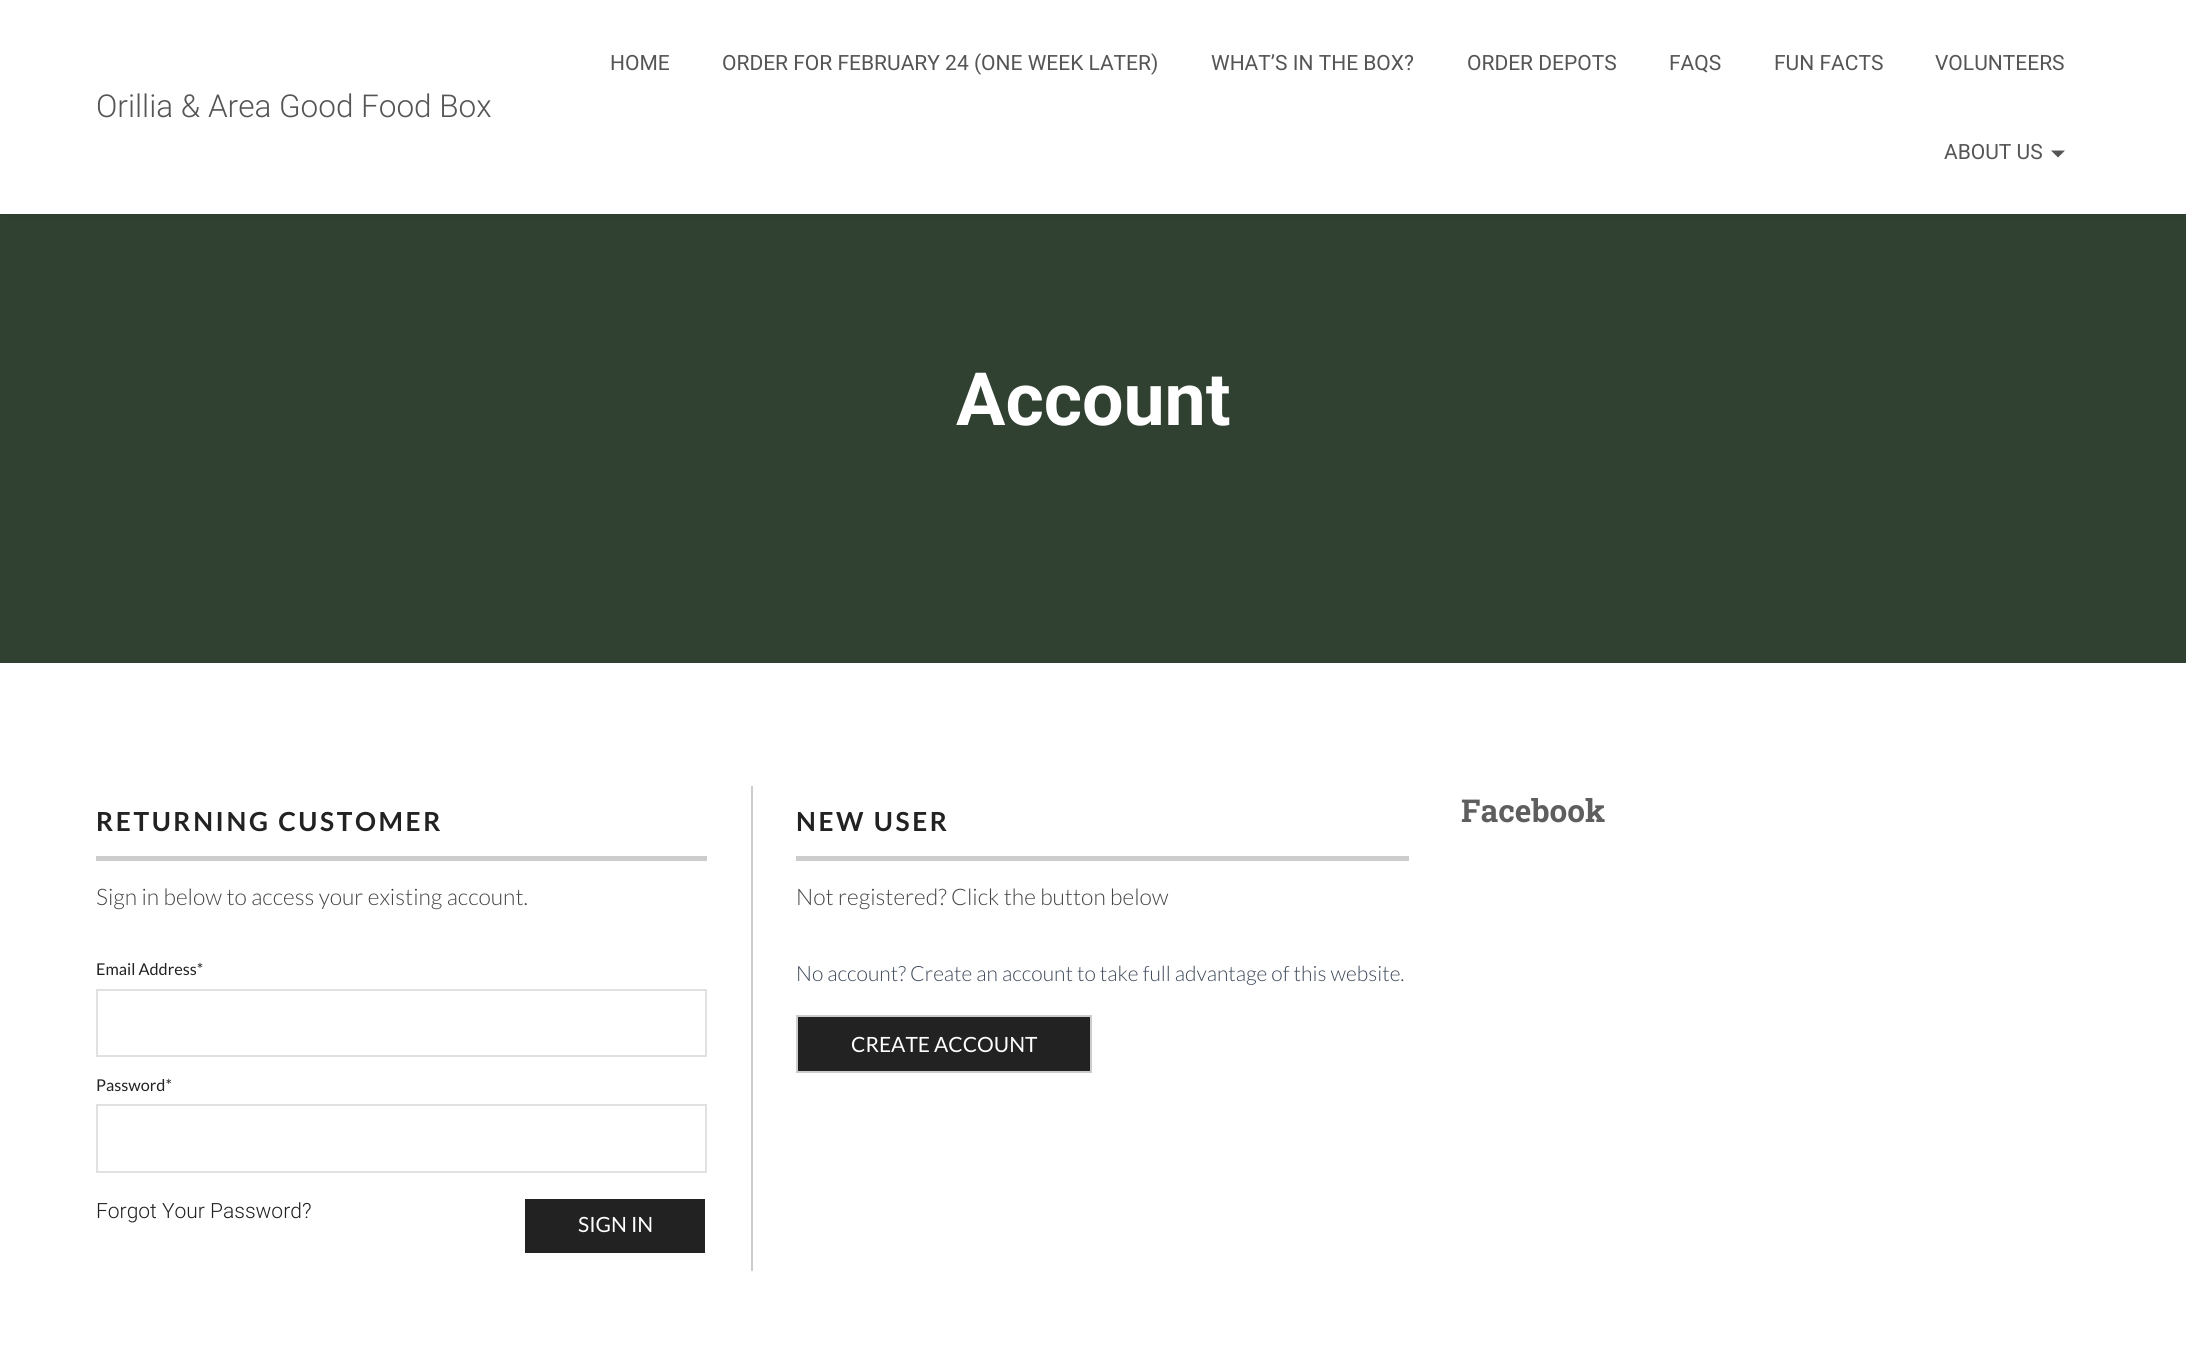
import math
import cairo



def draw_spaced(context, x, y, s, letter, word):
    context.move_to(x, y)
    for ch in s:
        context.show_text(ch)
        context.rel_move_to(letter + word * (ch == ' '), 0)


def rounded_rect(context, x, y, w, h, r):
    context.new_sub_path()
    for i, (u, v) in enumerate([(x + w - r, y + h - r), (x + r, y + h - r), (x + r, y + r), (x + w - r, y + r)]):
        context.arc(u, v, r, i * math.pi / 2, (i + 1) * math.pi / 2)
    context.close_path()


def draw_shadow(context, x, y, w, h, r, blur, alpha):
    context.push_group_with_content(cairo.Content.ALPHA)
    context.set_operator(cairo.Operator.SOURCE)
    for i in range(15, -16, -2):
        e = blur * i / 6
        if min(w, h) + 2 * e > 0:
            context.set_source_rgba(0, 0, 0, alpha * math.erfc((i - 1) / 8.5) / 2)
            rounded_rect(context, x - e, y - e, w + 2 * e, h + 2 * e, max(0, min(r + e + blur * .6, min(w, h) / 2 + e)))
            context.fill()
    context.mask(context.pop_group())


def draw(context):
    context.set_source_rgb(49 / 255, 65 / 255, 49 / 255)
    context.paint()
    context.set_source_rgb(0, 0, 0)
    draw_shadow(context, 11, 12, 2166, 193, 0, 9, 0.42)
    context.set_source_rgb(1, 1, 1)
    context.rectangle(0, 0, 2186, 214)
    context.fill()
    context.set_source_rgb(85 / 255, 85 / 255, 85 / 255)
    context.new_path()
    context.move_to(2051, 150.5)
    context.line_to(2065, 150.5)
    context.line_to(2058, 157.5)
    context.close_path()
    context.fill()
    context.set_source_rgb(1, 1, 1)
    context.rectangle(0, 663, 2186, 707)
    context.fill()
    context.set_source_rgb(204 / 255, 204 / 255, 204 / 255)
    context.rectangle(751, 786, 2, 485)
    context.fill()
    context.rectangle(96, 856, 611, 5)
    context.fill()
    context.rectangle(97, 990, 609, 66)
    context.set_source_rgb(225 / 255, 225 / 255, 225 / 255)
    context.stroke()
    context.rectangle(97, 1105, 609, 67)
    context.stroke()
    context.set_source_rgb(34 / 255, 34 / 255, 34 / 255)
    context.rectangle(525, 1199, 180, 54)
    context.fill()
    context.set_source_rgb(204 / 255, 204 / 255, 204 / 255)
    context.rectangle(796, 856, 613, 5)
    context.fill()
    context.set_source_rgb(34 / 255, 34 / 255, 34 / 255)
    context.rectangle(797, 1016, 294, 56)
    context.fill_preserve()
    context.set_source_rgb(204 / 255, 204 / 255, 204 / 255)
    context.stroke()
    context.select_font_face("Roboto Light")
    context.set_font_size(31.5)
    context.set_source_rgb(85 / 255, 85 / 255, 85 / 255)
    context.move_to(96, 117)
    context.show_text("Orillia & Area Good Food Box")
    context.select_font_face("Roboto")
    context.set_font_size(21)
    context.move_to(610, 70)
    context.show_text("HOME")
    context.move_to(722, 70)
    context.show_text("ORDER FOR FEBRUARY 24 (ONE WEEK LATER)")
    context.move_to(1211, 70)
    context.show_text("WHAT’S IN THE BOX?")
    context.move_to(1467, 70)
    context.show_text("ORDER DEPOTS")
    context.move_to(1669, 70)
    context.show_text("FAQS")
    context.move_to(1774, 70)
    context.show_text("FUN FACTS")
    context.move_to(1935, 70)
    context.show_text("VOLUNTEERS")
    context.move_to(1944, 159)
    context.show_text("ABOUT US")
    context.select_font_face("Roboto", cairo.FontSlant.NORMAL, cairo.FontWeight.BOLD)
    context.set_font_size(73.5)
    context.set_source_rgb(1, 1, 1)
    context.move_to(956, 425)
    context.show_text("Account")
    context.select_font_face("Lato", cairo.FontSlant.NORMAL, cairo.FontWeight.BOLD)
    context.set_font_size(26.25)
    context.set_source_rgb(34 / 255, 34 / 255, 34 / 255)
    draw_spaced(context, 96, 831, "RETURNING CUSTOMER", 2.6, 0)
    context.select_font_face("Lato Light")
    context.set_font_size(22.75)
    context.set_source_rgb(68 / 255, 68 / 255, 68 / 255)
    context.move_to(96, 905)
    context.show_text("Sign in below to access your existing account.")
    context.select_font_face("Lato")
    context.set_font_size(16.25)
    context.set_source_rgb(34 / 255, 34 / 255, 34 / 255)
    context.move_to(96, 975)
    context.show_text("Email Address*")
    context.move_to(96, 1091)
    context.show_text("Password*")
    context.select_font_face("Roboto Light")
    context.set_font_size(21)
    context.move_to(96, 1218)
    context.show_text("Forgot Your Password?")
    context.select_font_face("Lato")
    context.set_source_rgb(1, 1, 1)
    context.move_to(578, 1232)
    context.show_text("SIGN IN")
    context.select_font_face("Lato", cairo.FontSlant.NORMAL, cairo.FontWeight.BOLD)
    context.set_font_size(26.25)
    context.set_source_rgb(34 / 255, 34 / 255, 34 / 255)
    draw_spaced(context, 796, 831, "NEW USER", 2.6, 0)
    context.select_font_face("Lato Light")
    context.set_font_size(22.75)
    context.set_source_rgb(68 / 255, 68 / 255, 68 / 255)
    context.move_to(796, 905)
    context.show_text("Not registered? Click the button below")
    context.set_font_size(21)
    context.set_source_rgb(60 / 255, 72 / 255, 88 / 255)
    context.move_to(796, 981)
    context.show_text("No account? Create an account to take full advantage of this website.")
    context.select_font_face("Lato")
    context.set_source_rgb(1, 1, 1)
    context.move_to(851, 1052)
    context.show_text("CREATE ACCOUNT")
    context.select_font_face("Roboto Slab", cairo.FontSlant.NORMAL, cairo.FontWeight.BOLD)
    context.set_font_size(31.5)
    context.set_source_rgb(94 / 255, 94 / 255, 94 / 255)
    context.move_to(1461, 822)
    context.show_text("Facebook")


surface = cairo.ImageSurface(cairo.Format.RGB24, 2186, 1370)
context = cairo.Context(surface)
options = cairo.FontOptions()
options.set_hint_metrics(cairo.HintMetrics.OFF)
options.set_hint_style(cairo.HintStyle.NONE)
context.set_font_options(options)
context.set_miter_limit(4)
draw(context)
surface.write_to_png("out.png")
